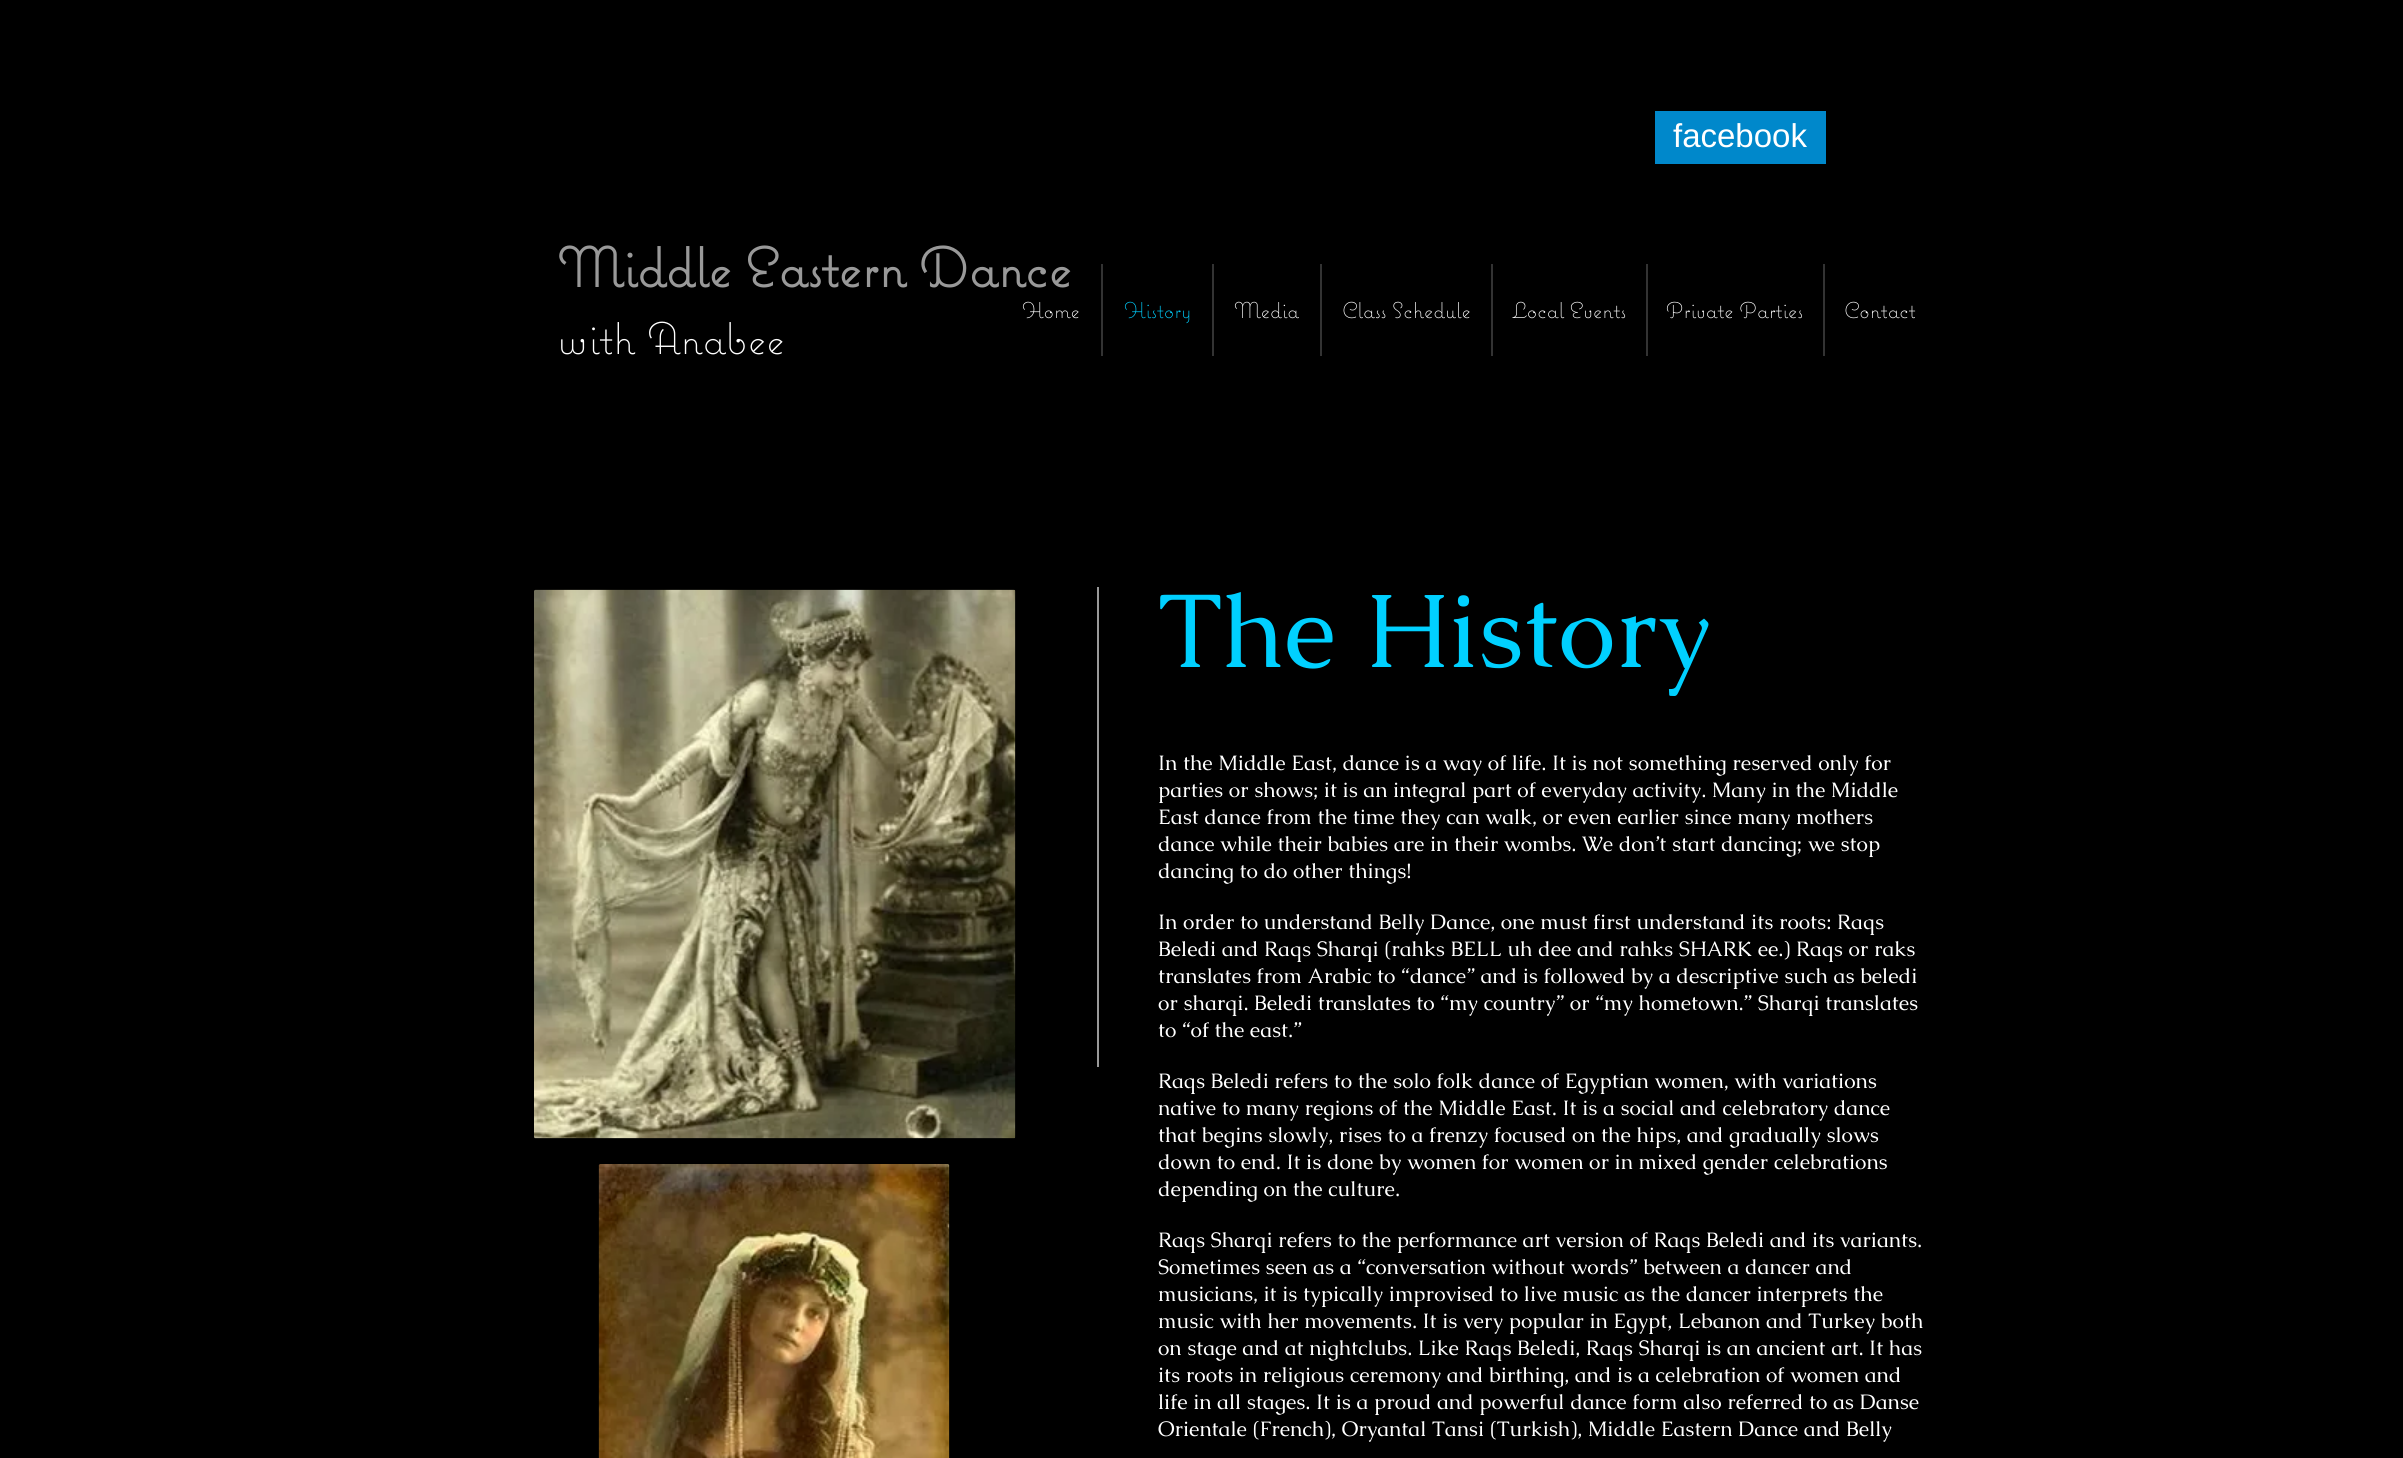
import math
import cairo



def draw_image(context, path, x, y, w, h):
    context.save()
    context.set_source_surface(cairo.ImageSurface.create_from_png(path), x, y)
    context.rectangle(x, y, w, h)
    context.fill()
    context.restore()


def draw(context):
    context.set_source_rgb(0, 0, 0)
    context.paint()
    context.set_source_rgb(0, 136 / 255, 203 / 255)
    context.rectangle(1655, 111, 171, 53)
    context.fill()
    context.set_source_rgb(51 / 255, 51 / 255, 51 / 255)
    context.rectangle(1101, 264, 2, 92)
    context.fill()
    context.rectangle(1212, 264, 2, 92)
    context.fill()
    context.rectangle(1320, 264, 2, 92)
    context.fill()
    context.rectangle(1491, 264, 2, 92)
    context.fill()
    context.rectangle(1646, 264, 2, 92)
    context.fill()
    context.rectangle(1823, 264, 2, 92)
    context.fill()
    draw_image(context, "images/1.png", 534, 589, 482, 550)
    context.set_source_rgb(153 / 255, 153 / 255, 153 / 255)
    context.rectangle(1097, 587, 2, 480)
    context.fill()
    draw_image(context, "images/2.png", 598, 1164, 352, 294)
    context.select_font_face("Liberation Sans")
    context.set_font_size(33)
    context.set_source_rgb(1, 1, 1)
    context.move_to(1673, 147)
    context.show_text("facebook")
    context.select_font_face("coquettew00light", cairo.FontSlant.NORMAL, cairo.FontWeight.BOLD)
    context.set_font_size(55.5)
    context.set_source_rgb(153 / 255, 153 / 255, 153 / 255)
    context.move_to(557, 287)
    context.show_text("Middle Eastern Dance")
    context.select_font_face("coquettew00light Light")
    context.set_font_size(45)
    context.set_source_rgb(1, 1, 1)
    context.move_to(557, 354)
    context.show_text("with Anabee")
    context.set_font_size(22.5)
    context.move_to(1022, 318)
    context.show_text("Home")
    context.set_source_rgb(0, 208 / 255, 1)
    context.move_to(1124, 318)
    context.show_text("History")
    context.set_source_rgb(1, 1, 1)
    context.move_to(1234, 318)
    context.show_text("Media")
    context.move_to(1342, 318)
    context.show_text("Class Schedule")
    context.move_to(1512, 318)
    context.show_text("Local Events")
    context.move_to(1666, 318)
    context.show_text("Private Parties")
    context.move_to(1844, 318)
    context.show_text("Contact")
    context.select_font_face("Caudex")
    context.set_font_size(105)
    context.set_source_rgb(0, 208 / 255, 1)
    context.move_to(1158, 667)
    context.show_text("The History")
    context.set_font_size(21)
    context.set_source_rgb(1, 1, 1)
    context.move_to(1158, 770)
    context.show_text("In the Middle East, dance is a way of life. It is not something reserved only for")
    context.move_to(1158, 797)
    context.show_text("parties or shows; it is an integral part of everyday activity. Many in the Middle")
    context.move_to(1158, 824)
    context.show_text("East dance from the time they can walk, or even earlier since many mothers")
    context.move_to(1158, 851)
    context.show_text("dance while their babies are in their wombs. We don’t start dancing; we stop")
    context.move_to(1158, 878)
    context.show_text("dancing to do other things!")
    context.move_to(1158, 929)
    context.show_text("In order to understand Belly Dance, one must first understand its roots: Raqs")
    context.move_to(1158, 956)
    context.show_text("Beledi and Raqs Sharqi (rahks BELL uh dee and rahks SHARK ee.) Raqs or raks")
    context.move_to(1158, 983)
    context.show_text("translates from Arabic to “dance” and is followed by a descriptive such as beledi")
    context.move_to(1158, 1010)
    context.show_text("or sharqi. Beledi translates to “my country” or “my hometown.” Sharqi translates")
    context.move_to(1158, 1037)
    context.show_text("to “of the east.”")
    context.move_to(1158, 1088)
    context.show_text("Raqs Beledi refers to the solo folk dance of Egyptian women, with variations")
    context.move_to(1158, 1115)
    context.show_text("native to many regions of the Middle East. It is a social and celebratory dance")
    context.move_to(1158, 1142)
    context.show_text("that begins slowly, rises to a frenzy focused on the hips, and gradually slows")
    context.move_to(1158, 1169)
    context.show_text("down to end. It is done by women for women or in mixed gender celebrations")
    context.move_to(1158, 1196)
    context.show_text("depending on the culture.")
    context.move_to(1158, 1247)
    context.show_text("Raqs Sharqi refers to the performance art version of Raqs Beledi and its variants.")
    context.move_to(1158, 1274)
    context.show_text("Sometimes seen as a “conversation without words” between a dancer and")
    context.move_to(1158, 1301)
    context.show_text("musicians, it is typically improvised to live music as the dancer interprets the")
    context.move_to(1158, 1328)
    context.show_text("music with her movements. It is very popular in Egypt, Lebanon and Turkey both")
    context.move_to(1158, 1355)
    context.show_text("on stage and at nightclubs. Like Raqs Beledi, Raqs Sharqi is an ancient art. It has")
    context.move_to(1158, 1382)
    context.show_text("its roots in religious ceremony and birthing, and is a celebration of women and")
    context.move_to(1158, 1409)
    context.show_text("life in all stages. It is a proud and powerful dance form also referred to as Danse")
    context.move_to(1158, 1436)
    context.show_text("Orientale (French), Oryantal Tansi (Turkish), Middle Eastern Dance and Belly")


surface = cairo.ImageSurface(cairo.Format.RGB24, 2403, 1458)
context = cairo.Context(surface)
options = cairo.FontOptions()
options.set_hint_metrics(cairo.HintMetrics.OFF)
options.set_hint_style(cairo.HintStyle.NONE)
context.set_font_options(options)
context.set_miter_limit(4)
draw(context)
surface.write_to_png("out.png")
